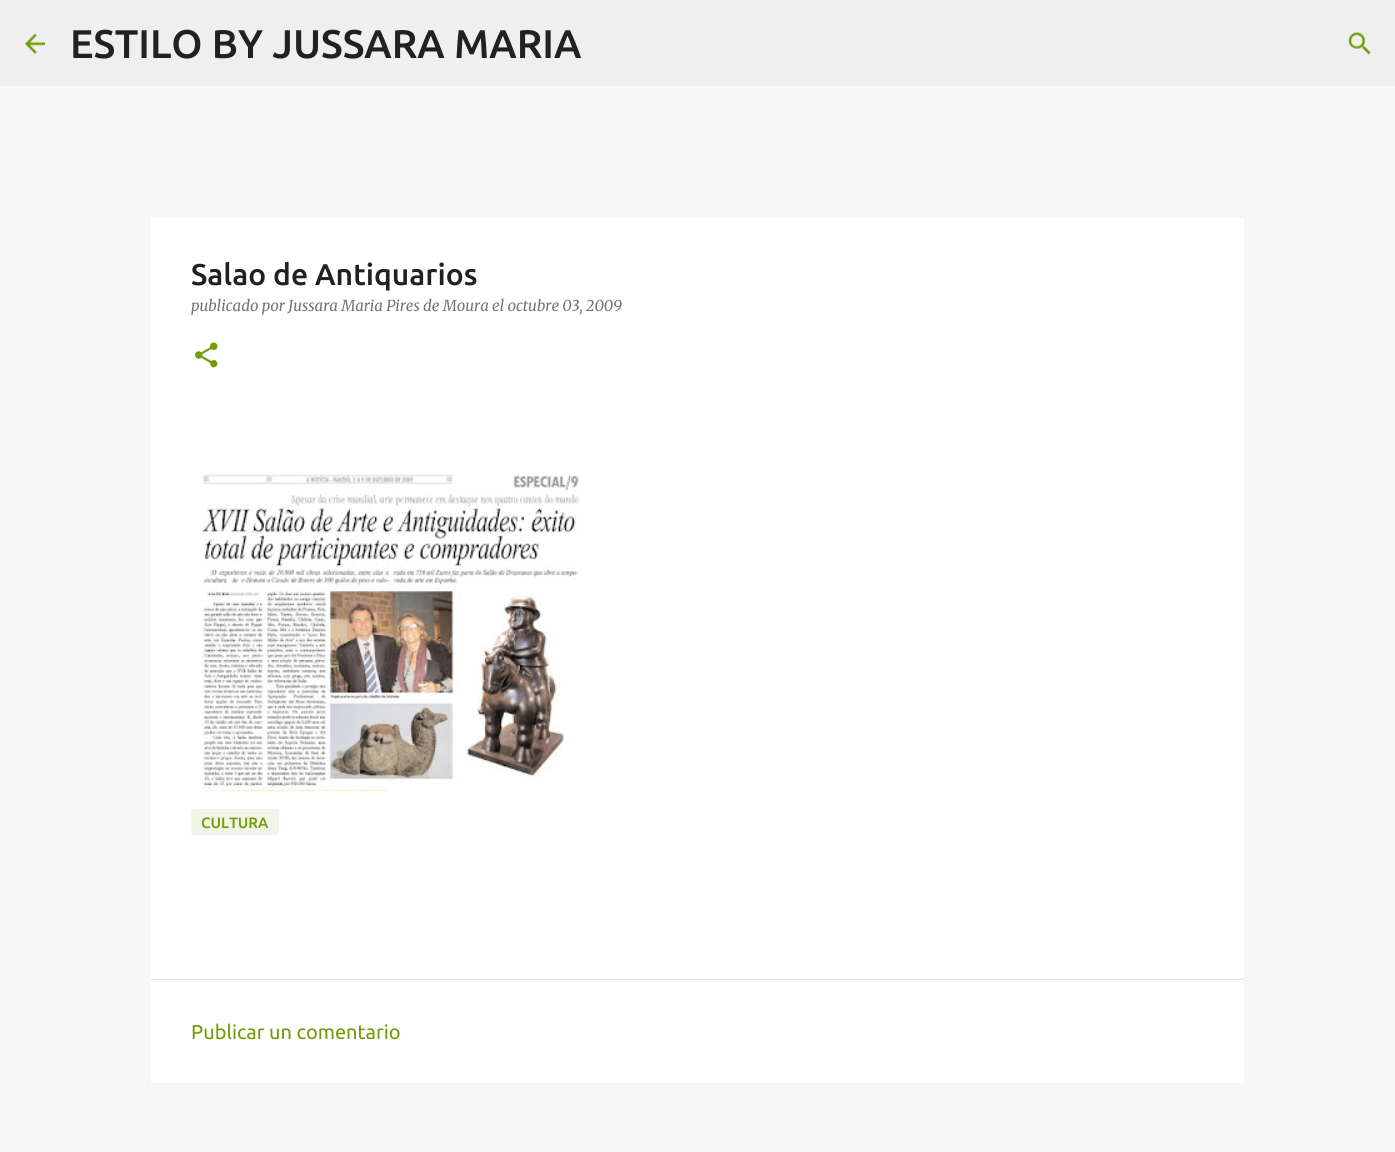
import math
import cairo



def rounded_rect(context, x, y, w, h, r):
    context.new_sub_path()
    for i, (u, v) in enumerate([(x + w - r, y + h - r), (x + r, y + h - r), (x + r, y + r), (x + w - r, y + r)]):
        context.arc(u, v, r, i * math.pi / 2, (i + 1) * math.pi / 2)
    context.close_path()


def draw_image(context, path, x, y, w, h):
    context.save()
    context.set_source_surface(cairo.ImageSurface.create_from_png(path), x, y)
    context.rectangle(x, y, w, h)
    context.fill()
    context.restore()


def draw(context):
    context.set_source_rgb(247 / 255, 247 / 255, 247 / 255)
    context.paint()
    context.set_source_rgb(239 / 255, 239 / 255, 239 / 255)
    context.rectangle(0, 0, 1395, 86)
    context.fill()
    draw_image(context, "images/1.png", 25, 33, 20, 21)
    draw_image(context, "images/2.png", 1348, 31, 23, 24)
    context.set_source_rgb(1, 1, 1)
    context.rectangle(151, 218, 1093, 761)
    context.fill()
    draw_image(context, "images/3.png", 195, 342, 23, 26)
    draw_image(context, "images/4.png", 202, 474, 379, 318)
    context.set_source_rgb(241 / 255, 245 / 255, 231 / 255)
    rounded_rect(context, 191, 809, 88, 26, 2.5)
    context.fill()
    context.set_source_rgb(1, 1, 1)
    context.rectangle(151, 980, 1093, 103)
    context.fill()
    context.set_source_rgb(224 / 255, 224 / 255, 224 / 255)
    context.rectangle(151, 979, 1093, 1)
    context.fill()
    context.select_font_face("Ubuntu Medium")
    context.set_font_size(40)
    context.set_source_rgb(33 / 255, 33 / 255, 33 / 255)
    context.move_to(70, 58)
    context.show_text("ESTILO BY JUSSARA MARIA")
    context.set_font_size(30)
    context.move_to(191, 285)
    context.show_text("Salao de Antiquarios")
    context.select_font_face("Merriweather", cairo.FontSlant.ITALIC)
    context.set_font_size(15)
    context.set_source_rgb(117 / 255, 117 / 255, 117 / 255)
    context.move_to(191, 311)
    context.show_text("publicado por Jussara Maria Pires de Moura el octubre 03, 2009")
    context.select_font_face("Ubuntu Medium")
    context.set_source_rgb(114 / 255, 156 / 255, 11 / 255)
    context.move_to(201, 828)
    context.show_text("CULTURA")
    context.select_font_face("Ubuntu")
    context.set_font_size(20)
    context.move_to(191, 1039)
    context.show_text("Publicar un comentario")


surface = cairo.ImageSurface(cairo.Format.RGB24, 1395, 1152)
context = cairo.Context(surface)
options = cairo.FontOptions()
options.set_hint_metrics(cairo.HintMetrics.OFF)
options.set_hint_style(cairo.HintStyle.NONE)
context.set_font_options(options)
context.set_miter_limit(4)
draw(context)
surface.write_to_png("out.png")
